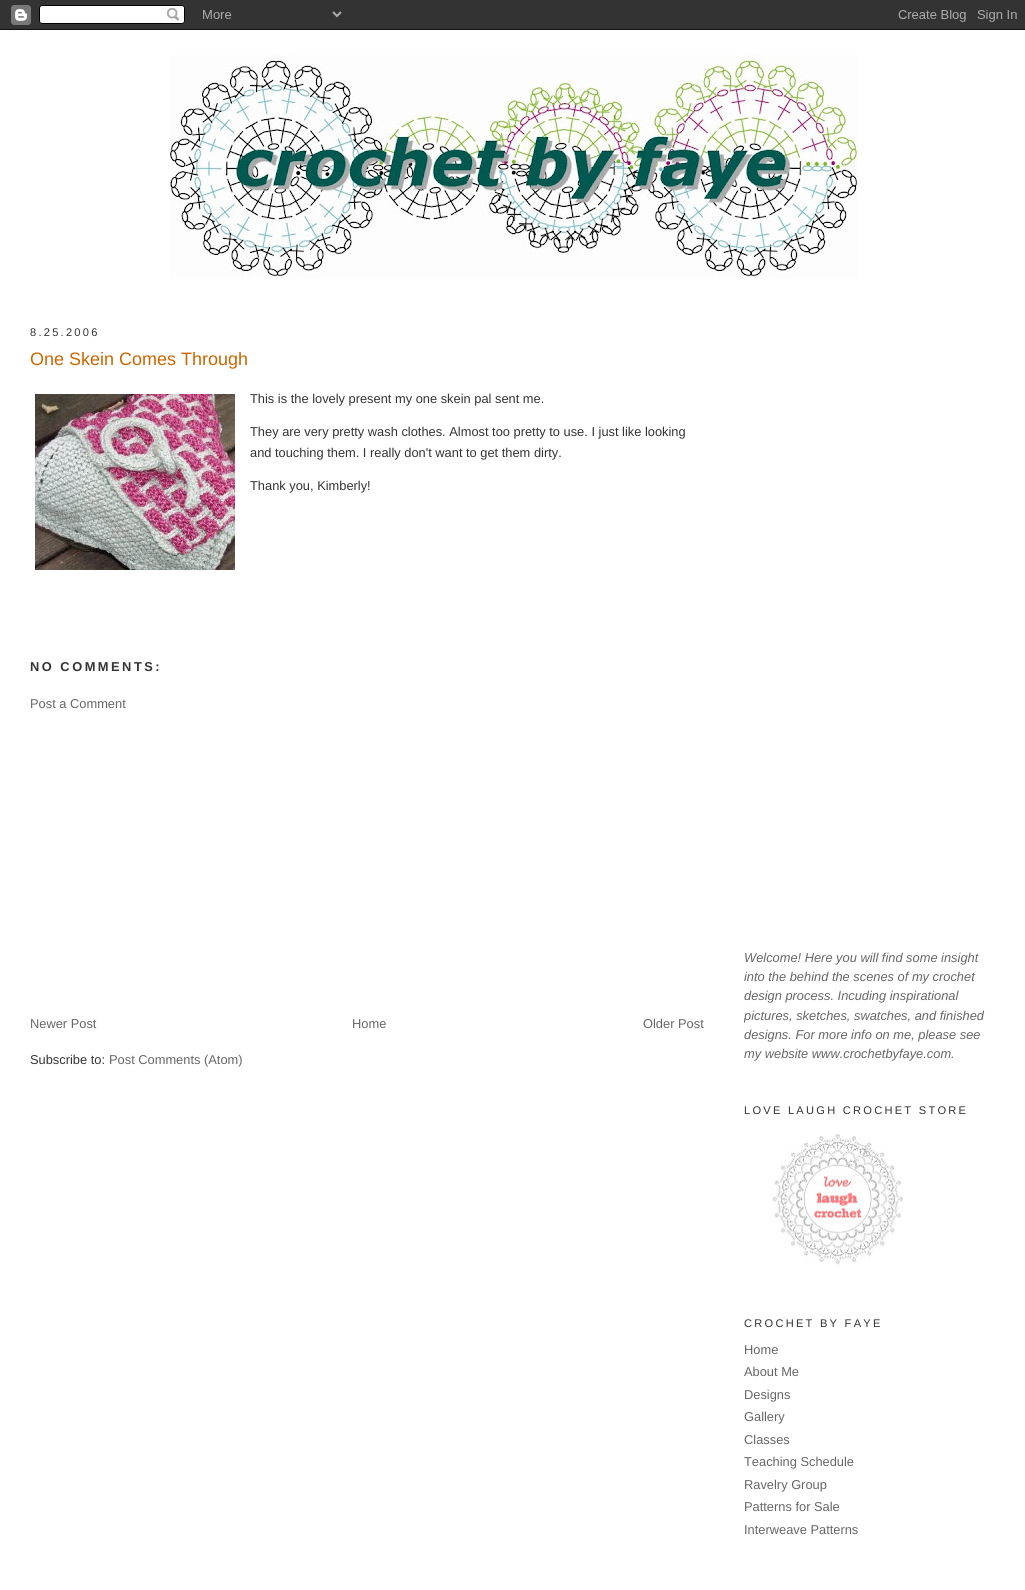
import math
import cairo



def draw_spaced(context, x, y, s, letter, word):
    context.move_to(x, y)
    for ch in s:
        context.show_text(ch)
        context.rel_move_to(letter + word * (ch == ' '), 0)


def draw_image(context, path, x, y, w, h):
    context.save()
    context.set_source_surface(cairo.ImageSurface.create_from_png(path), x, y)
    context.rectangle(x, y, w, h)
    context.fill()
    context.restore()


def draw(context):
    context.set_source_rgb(1, 1, 1)
    context.paint()
    draw_image(context, "images/1.png", 0, 0, 1025, 30)
    draw_image(context, "images/2.png", 170, 55, 688, 224)
    draw_image(context, "images/3.png", 35, 394, 200, 176)
    draw_image(context, "images/4.png", 772, 1134, 131, 135)
    context.select_font_face("Liberation Sans")
    context.set_font_size(11.1)
    context.set_source_rgb(51 / 255, 51 / 255, 51 / 255)
    draw_spaced(context, 30, 336, "8.25.2006", 2.25, 0)
    context.set_font_size(18)
    context.set_source_rgb(204 / 255, 102 / 255, 0)
    context.move_to(30, 365)
    context.show_text("One Skein Comes Through")
    context.set_font_size(12.85)
    context.set_source_rgb(51 / 255, 51 / 255, 51 / 255)
    context.move_to(250, 403)
    context.show_text("This is the lovely present my one skein pal sent me.")
    context.move_to(250, 436)
    context.show_text("They are very pretty wash clothes. Almost too pretty to use. I just like looking")
    context.move_to(250, 457)
    context.show_text("and touching them. I really don't want to get them dirty.")
    context.move_to(250, 490)
    context.show_text("Thank you, Kimberly!")
    context.select_font_face("Liberation Sans", cairo.FontSlant.NORMAL, cairo.FontWeight.BOLD)
    draw_spaced(context, 30, 671, "NO COMMENTS:", 2.5, 0)
    context.select_font_face("Liberation Sans")
    context.set_source_rgb(102 / 255, 102 / 255, 102 / 255)
    context.move_to(30, 708)
    context.show_text("Post a Comment")
    context.move_to(30, 1028)
    context.show_text("Newer Post")
    context.move_to(352, 1028)
    context.show_text("Home")
    context.move_to(643, 1028)
    context.show_text("Older Post")
    context.set_source_rgb(51 / 255, 51 / 255, 51 / 255)
    context.move_to(30, 1064)
    context.show_text("Subscribe to:")
    context.set_source_rgb(102 / 255, 102 / 255, 102 / 255)
    context.move_to(109, 1064)
    context.show_text("Post Comments (Atom)")
    context.select_font_face("Liberation Sans", cairo.FontSlant.ITALIC)
    context.move_to(744, 962)
    context.show_text("Welcome! Here you will find some insight")
    context.move_to(744, 981)
    context.show_text("into the behind the scenes of my crochet")
    context.move_to(744, 1000)
    context.show_text("design process. Incuding inspirational")
    context.save()
    context.rectangle(744, 308, 251, 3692)
    context.clip()
    context.move_to(744, 1020)
    context.show_text("pictures, sketches, swatches, and finished")
    context.restore()
    context.move_to(744, 1039)
    context.show_text("designs. For more info on me, please see")
    context.move_to(744, 1058)
    context.show_text("my website www.crochetbyfaye.com.")
    context.select_font_face("Liberation Sans")
    context.set_font_size(11.1)
    context.set_source_rgb(51 / 255, 51 / 255, 51 / 255)
    draw_spaced(context, 744, 1114, "LOVE LAUGH CROCHET STORE", 2.25, 0)
    draw_spaced(context, 744, 1327, "CROCHET BY FAYE", 2.25, 0)
    context.set_font_size(12.85)
    context.set_source_rgb(102 / 255, 102 / 255, 102 / 255)
    context.move_to(744, 1354)
    context.show_text("Home")
    context.move_to(744, 1376)
    context.show_text("About Me")
    context.move_to(744, 1399)
    context.show_text("Designs")
    context.move_to(744, 1421)
    context.show_text("Gallery")
    context.move_to(744, 1444)
    context.show_text("Classes")
    context.move_to(744, 1466)
    context.show_text("Teaching Schedule")
    context.move_to(744, 1489)
    context.show_text("Ravelry Group")
    context.move_to(744, 1511)
    context.show_text("Patterns for Sale")
    context.move_to(744, 1534)
    context.show_text("Interweave Patterns")


surface = cairo.ImageSurface(cairo.Format.RGB24, 1025, 1590)
context = cairo.Context(surface)
options = cairo.FontOptions()
options.set_hint_metrics(cairo.HintMetrics.OFF)
options.set_hint_style(cairo.HintStyle.NONE)
context.set_font_options(options)
context.set_miter_limit(4)
draw(context)
surface.write_to_png("out.png")
